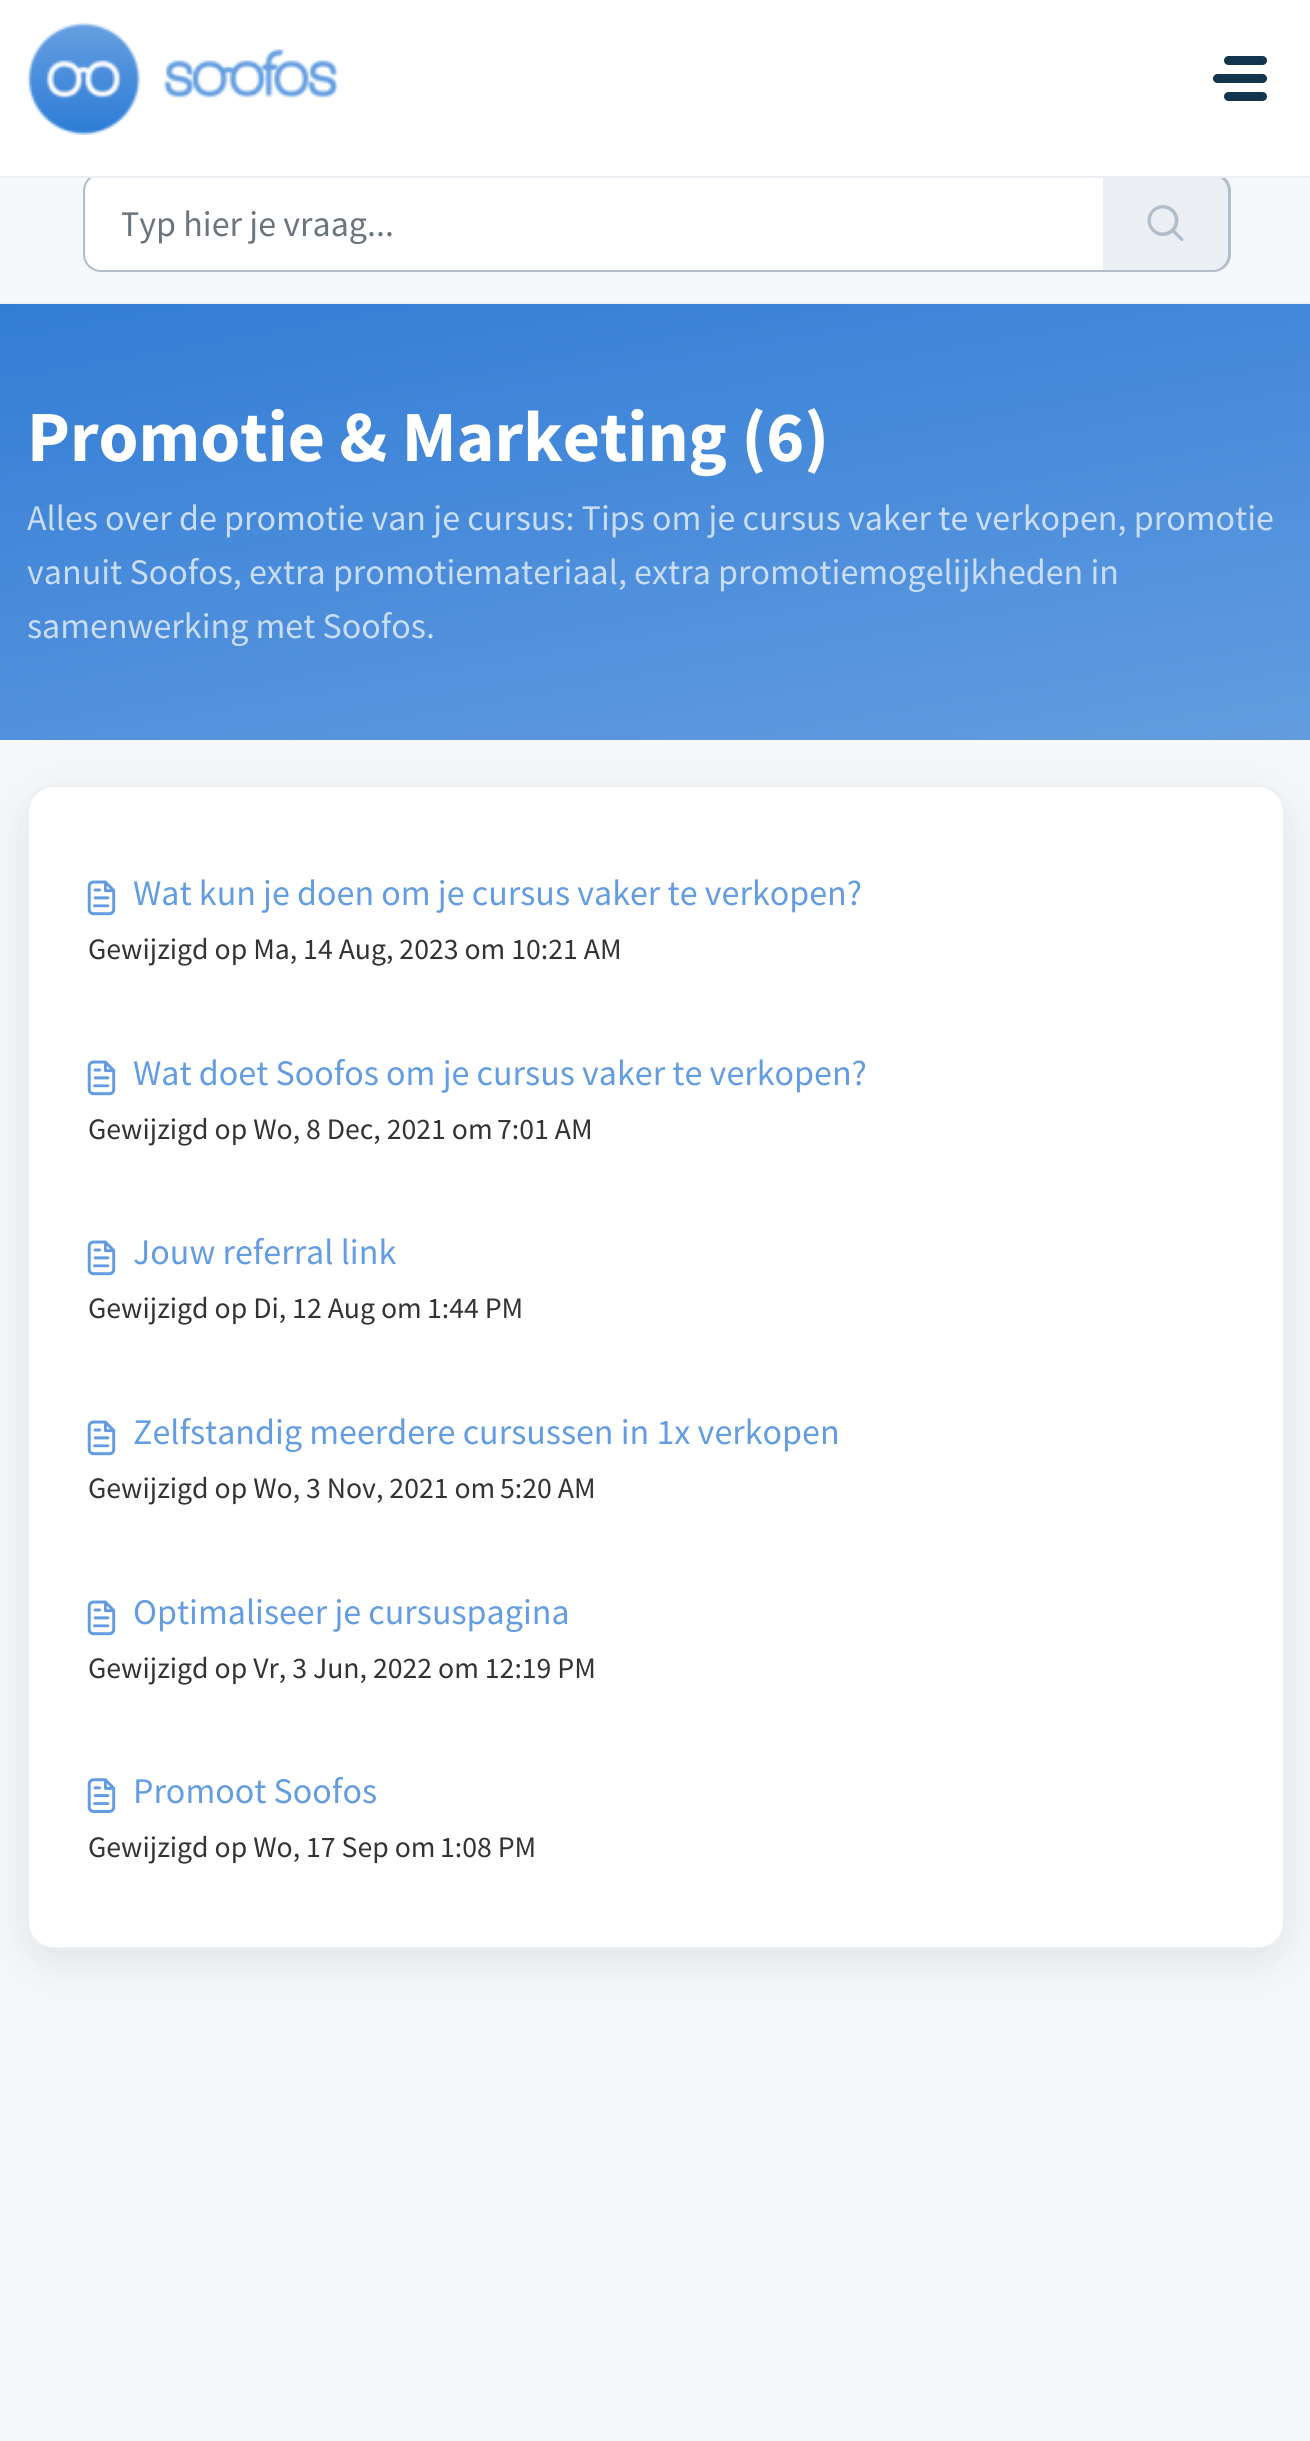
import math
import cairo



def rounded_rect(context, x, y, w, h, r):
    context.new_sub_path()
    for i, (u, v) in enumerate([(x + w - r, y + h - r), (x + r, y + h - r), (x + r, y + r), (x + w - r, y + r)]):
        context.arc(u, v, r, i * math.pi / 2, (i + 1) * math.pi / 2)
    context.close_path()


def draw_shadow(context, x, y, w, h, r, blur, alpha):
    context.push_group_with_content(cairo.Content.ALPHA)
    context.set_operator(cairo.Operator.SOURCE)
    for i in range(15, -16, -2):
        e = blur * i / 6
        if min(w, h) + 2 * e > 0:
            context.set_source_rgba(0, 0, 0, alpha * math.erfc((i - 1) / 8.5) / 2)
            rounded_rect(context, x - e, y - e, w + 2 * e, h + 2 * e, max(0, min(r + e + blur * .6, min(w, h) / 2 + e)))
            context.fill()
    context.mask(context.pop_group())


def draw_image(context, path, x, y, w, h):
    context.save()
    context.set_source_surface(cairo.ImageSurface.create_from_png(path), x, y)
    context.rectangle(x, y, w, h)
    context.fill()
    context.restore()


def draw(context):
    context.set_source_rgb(245 / 255, 247 / 255, 249 / 255)
    context.paint()
    context.set_source_rgb(1, 1, 1)
    context.new_path()
    context.move_to(102, 176)
    context.line_to(1103, 176)
    context.line_to(1103, 270)
    context.line_to(102, 270)
    context.curve_to(93, 270, 86, 263, 86, 254)
    context.line_to(86, 192)
    context.curve_to(86, 183, 93, 176, 102, 176)
    context.close_path()
    context.fill()
    context.new_path()
    context.move_to(101, 174)
    context.line_to(1104, 174)
    context.line_to(1104, 271)
    context.line_to(101, 271)
    context.curve_to(91.5, 271, 84, 263.5, 84, 254)
    context.line_to(84, 191)
    context.curve_to(84, 181.5, 91.5, 174, 101, 174)
    context.close_path()
    context.set_source_rgb(177 / 255, 189 / 255, 200 / 255)
    context.stroke()
    context.set_source_rgb(235 / 255, 239 / 255, 243 / 255)
    context.new_path()
    context.move_to(1103, 173)
    context.line_to(1213, 173)
    context.curve_to(1223, 173, 1231, 181, 1231, 191)
    context.line_to(1231, 254)
    context.curve_to(1231, 264, 1223, 272, 1213, 272)
    context.line_to(1103, 272)
    context.close_path()
    context.fill()
    context.set_source_rgb(177 / 255, 189 / 255, 200 / 255)
    context.set_fill_rule(cairo.FillRule.EVEN_ODD)
    context.new_path()
    context.move_to(1102, 173)
    context.line_to(1213, 173)
    context.curve_to(1223, 173, 1231, 181, 1231, 191)
    context.line_to(1231, 254)
    context.curve_to(1231, 264, 1223, 272, 1213, 272)
    context.line_to(1102, 272)
    context.close_path()
    context.move_to(1102, 176)
    context.line_to(1213, 176)
    context.curve_to(1221, 176, 1228, 183, 1228, 191)
    context.line_to(1228, 254)
    context.curve_to(1228, 263, 1221, 270, 1213, 270)
    context.line_to(1102, 270)
    context.close_path()
    context.fill()
    context.set_source_rgb(1, 1, 1)
    context.rectangle(0, 0, 1310, 176)
    context.fill()
    context.set_source_rgb(235 / 255, 239 / 255, 243 / 255)
    context.rectangle(0, 176, 1310, 2)
    context.fill()
    draw_image(context, "images/1.png", 27, 22, 311, 113)
    context.set_source_rgb(18 / 255, 52 / 255, 77 / 255)
    rounded_rect(context, 1224, 56, 43, 9, 4.5)
    context.fill()
    rounded_rect(context, 1213, 74, 54, 9, 4.5)
    context.fill()
    rounded_rect(context, 1224, 92, 43, 9, 4.5)
    context.fill()
    context.set_source_rgb(235 / 255, 239 / 255, 243 / 255)
    context.rectangle(0, 302, 1310, 2)
    context.fill()
    draw_image(context, "images/2.png", 1147, 205, 37, 36)
    gradient = cairo.LinearGradient(713, 846, 599, 198)
    gradient.add_color_stop_rgba(0, 99 / 255, 156 / 255, 224 / 255, 1)
    gradient.add_color_stop_rgba(1, 50 / 255, 125 / 255, 214 / 255, 1)
    context.set_source(gradient)
    context.rectangle(0, 304, 1310, 436)
    context.fill()
    context.set_source_rgb(39 / 255, 49 / 255, 58 / 255)
    draw_shadow(context, 27, 799, 1258, 1163, 27, 21.5, 0.1)
    context.set_source_rgb(1, 1, 1)
    rounded_rect(context, 28, 786, 1256, 1162, 26)
    context.fill_preserve()
    context.set_source_rgb(235 / 255, 239 / 255, 243 / 255)
    context.stroke()
    draw_image(context, "images/3.png", 87, 880, 29, 36)
    draw_image(context, "images/3.png", 87, 1060, 29, 36)
    draw_image(context, "images/3.png", 87, 1240, 29, 36)
    draw_image(context, "images/3.png", 87, 1420, 29, 36)
    draw_image(context, "images/3.png", 87, 1600, 29, 36)
    draw_image(context, "images/4.png", 87, 1778, 29, 35)
    context.save()
    context.set_fill_rule(cairo.FillRule.WINDING)
    context.rectangle(122, 200, 945, 45)
    context.clip()
    context.select_font_face("Source Sans Pro")
    context.set_font_size(36)
    context.set_source_rgb(108 / 255, 117 / 255, 125 / 255)
    context.move_to(120, 236)
    context.show_text("Typ hier je vraag...")
    context.restore()
    context.select_font_face("Source Sans Pro", cairo.FontSlant.NORMAL, cairo.FontWeight.BOLD)
    context.set_font_size(72)
    context.set_source_rgb(1, 1, 1)
    context.move_to(27, 461)
    context.show_text("Promotie & Marketing (6)")
    context.select_font_face("Source Sans Pro")
    context.set_font_size(36)
    context.set_source_rgb(201 / 255, 221 / 255, 244 / 255)
    context.move_to(27, 530)
    context.show_text("Alles over de promotie van je cursus: Tips om je cursus vaker te verkopen, promotie")
    context.move_to(27, 584)
    context.show_text("vanuit Soofos, extra promotiemateriaal, extra promotiemogelijkheden in")
    context.move_to(27, 638)
    context.show_text("samenwerking met Soofos.")
    context.set_source_rgb(99 / 255, 156 / 255, 224 / 255)
    context.move_to(133, 905)
    context.show_text("Wat kun je doen om je cursus vaker te verkopen?")
    context.set_font_size(29.75)
    context.set_source_rgb(51 / 255, 51 / 255, 51 / 255)
    context.move_to(88, 959)
    context.show_text("Gewijzigd op Ma, 14 Aug, 2023 om 10:21 AM")
    context.set_font_size(36)
    context.set_source_rgb(99 / 255, 156 / 255, 224 / 255)
    context.move_to(133, 1085)
    context.show_text("Wat doet Soofos om je cursus vaker te verkopen?")
    context.set_font_size(29.75)
    context.set_source_rgb(51 / 255, 51 / 255, 51 / 255)
    context.move_to(88, 1139)
    context.show_text("Gewijzigd op Wo, 8 Dec, 2021 om")
    context.move_to(497, 1139)
    context.show_text("7:01 AM")
    context.set_font_size(36)
    context.set_source_rgb(99 / 255, 156 / 255, 224 / 255)
    context.move_to(133, 1264)
    context.show_text("Jouw referral link")
    context.set_font_size(29.75)
    context.set_source_rgb(51 / 255, 51 / 255, 51 / 255)
    context.move_to(88, 1318)
    context.show_text("Gewijzigd op Di, 12 Aug om")
    context.move_to(427, 1318)
    context.show_text("1:44 PM")
    context.set_font_size(36)
    context.set_source_rgb(99 / 255, 156 / 255, 224 / 255)
    context.move_to(133, 1444)
    context.show_text("Zelfstandig meerdere cursussen in 1x verkopen")
    context.set_font_size(29.75)
    context.set_source_rgb(51 / 255, 51 / 255, 51 / 255)
    context.move_to(88, 1498)
    context.show_text("Gewijzigd op Wo, 3 Nov, 2021 om")
    context.move_to(500, 1498)
    context.show_text("5:20 AM")
    context.set_font_size(36)
    context.set_source_rgb(99 / 255, 156 / 255, 224 / 255)
    context.move_to(133, 1624)
    context.show_text("Optimaliseer je cursuspagina")
    context.set_font_size(29.75)
    context.set_source_rgb(51 / 255, 51 / 255, 51 / 255)
    context.move_to(88, 1678)
    context.show_text("Gewijzigd op Vr, 3 Jun, 2022 om 12:19 PM")
    context.set_font_size(36)
    context.set_source_rgb(99 / 255, 156 / 255, 224 / 255)
    context.move_to(133, 1803)
    context.show_text("Promoot Soofos")
    context.set_font_size(29.75)
    context.set_source_rgb(51 / 255, 51 / 255, 51 / 255)
    context.move_to(88, 1857)
    context.show_text("Gewijzigd op Wo, 17 Sep om")
    context.move_to(440, 1857)
    context.show_text("1:08 PM")


surface = cairo.ImageSurface(cairo.Format.RGB24, 1310, 2441)
context = cairo.Context(surface)
options = cairo.FontOptions()
options.set_hint_metrics(cairo.HintMetrics.OFF)
options.set_hint_style(cairo.HintStyle.NONE)
context.set_font_options(options)
context.set_miter_limit(4)
draw(context)
surface.write_to_png("out.png")
